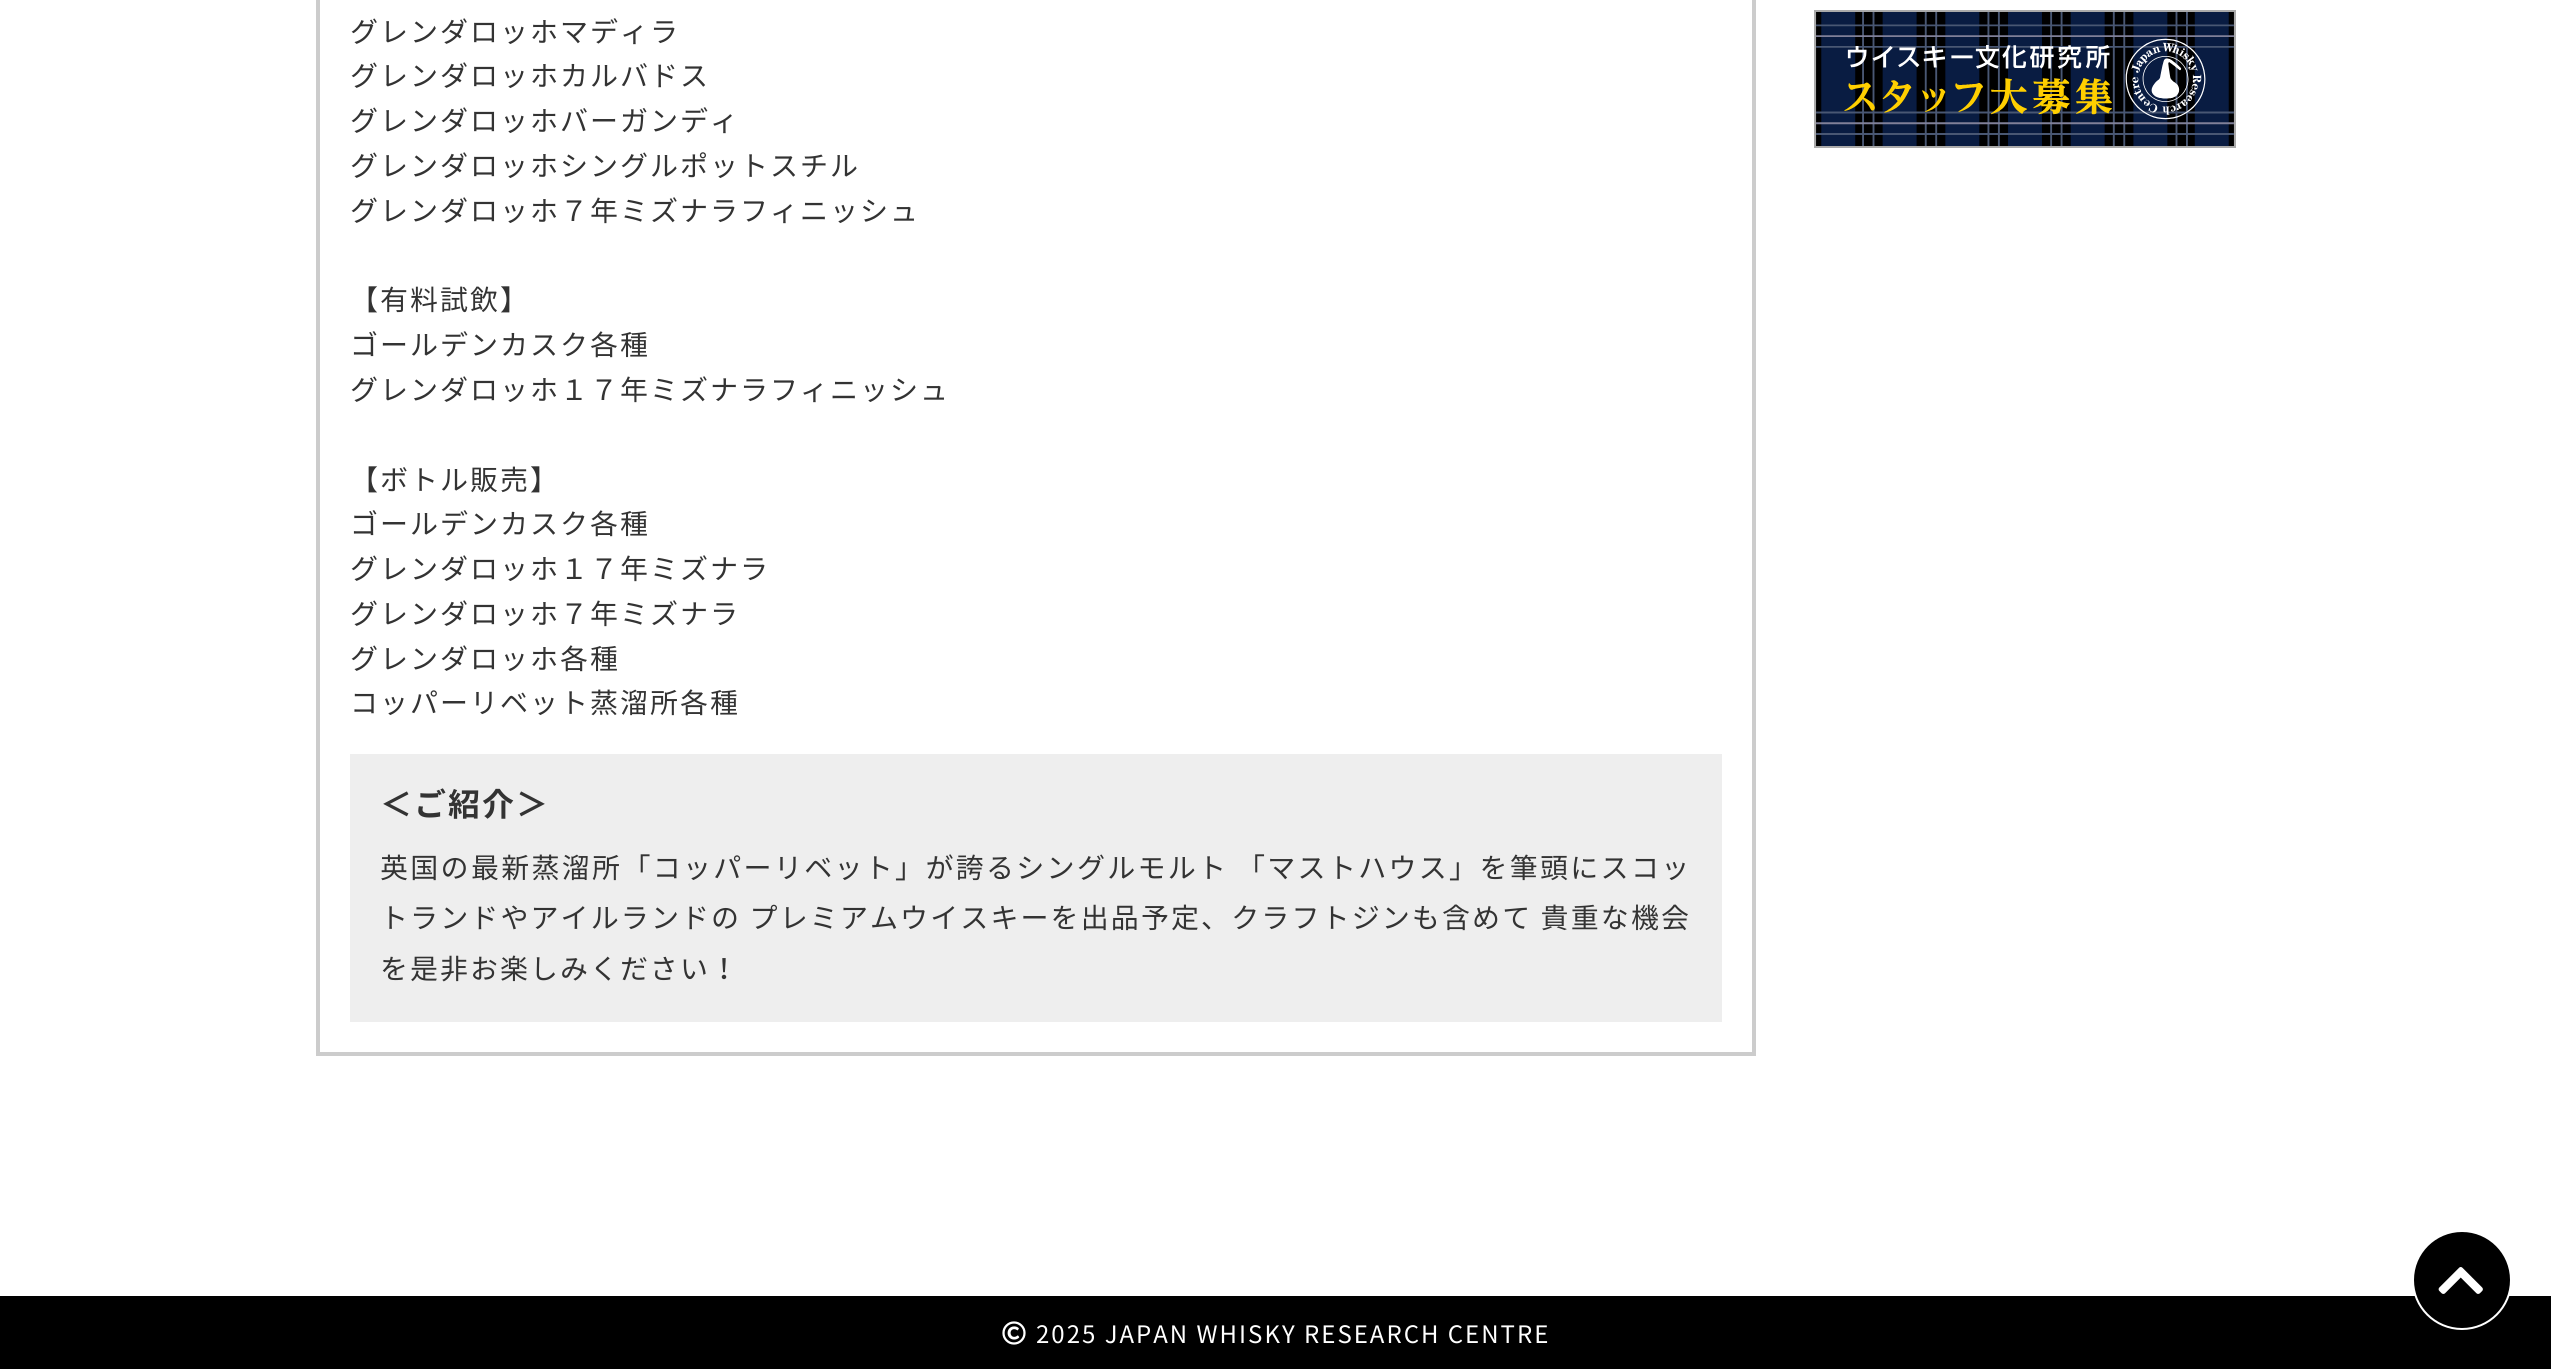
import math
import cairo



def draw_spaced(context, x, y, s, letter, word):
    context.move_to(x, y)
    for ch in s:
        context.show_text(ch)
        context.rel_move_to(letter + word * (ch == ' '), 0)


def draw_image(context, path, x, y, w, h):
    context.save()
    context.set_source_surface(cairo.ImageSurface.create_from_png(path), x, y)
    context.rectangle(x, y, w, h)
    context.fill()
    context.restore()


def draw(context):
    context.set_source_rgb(1, 1, 1)
    context.paint()
    context.rectangle(318, -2, 1436, 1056)
    context.set_source_rgb(204 / 255, 204 / 255, 204 / 255)
    context.set_line_width(4)
    context.stroke()
    context.set_source_rgb(238 / 255, 238 / 255, 238 / 255)
    context.rectangle(350, 754, 1372, 268)
    context.fill()
    context.rectangle(1815, 11, 420, 136)
    context.set_source_rgb(170 / 255, 170 / 255, 170 / 255)
    context.set_line_width(2)
    context.stroke()
    draw_image(context, "images/1.png", 1816, 12, 418, 134)
    context.set_source_rgb(0, 0, 0)
    context.rectangle(0, 1296, 2551, 73)
    context.fill()
    context.arc(2462, 1280, 49, 0, 2 * math.pi)
    context.fill_preserve()
    context.set_source_rgb(1, 1, 1)
    context.stroke()
    draw_image(context, "images/2.png", 2438, 1267, 45, 27)
    draw_image(context, "images/3.png", 1002, 1321, 24, 24)
    context.select_font_face("Noto Sans JP")
    context.set_font_size(28)
    context.set_source_rgb(51 / 255, 51 / 255, 51 / 255)
    draw_spaced(context, 350, 42, "グレンダロッホマディラ", 2, 0)
    draw_spaced(context, 350, 86, "グレンダロッホカルバドス", 2, 0)
    draw_spaced(context, 350, 131, "グレンダロッホバーガンディ", 2, 0)
    draw_spaced(context, 350, 176, "グレンダロッホシングルポットスチル", 2, 0)
    draw_spaced(context, 350, 221, "グレンダロッホ７年ミズナラフィニッシュ", 2, 0)
    draw_spaced(context, 350, 310, "【有料試飲】", 2, 0)
    draw_spaced(context, 350, 355, "ゴールデンカスク各種", 2, 0)
    draw_spaced(context, 350, 400, "グレンダロッホ１７年ミズナラフィニッシュ", 2, 0)
    draw_spaced(context, 350, 490, "【ボトル販売】", 2, 0)
    draw_spaced(context, 350, 534, "ゴールデンカスク各種", 2, 0)
    draw_spaced(context, 350, 579, "グレンダロッホ１７年ミズナラ", 2, 0)
    draw_spaced(context, 350, 624, "グレンダロッホ７年ミズナラ", 2, 0)
    draw_spaced(context, 350, 669, "グレンダロッホ各種", 2, 0)
    draw_spaced(context, 350, 713, "コッパーリベット蒸溜所各種", 2, 0)
    context.select_font_face("Noto Sans JP", cairo.FontSlant.NORMAL, cairo.FontWeight.BOLD)
    context.set_font_size(32)
    draw_spaced(context, 380, 816, "＜ご紹介＞", 2, 0)
    context.select_font_face("Noto Sans JP")
    context.set_font_size(28)
    draw_spaced(context, 380, 878, "英国の最新蒸溜所「コッパーリベット」が誇るシングルモルト 「マストハウス」を筆頭にスコッ", 2.3, 0)
    draw_spaced(context, 380, 928, "トランドやアイルランドの プレミアムウイスキーを出品予定、クラフトジンも含めて 貴重な機会", 2.1, 0)
    draw_spaced(context, 380, 979, "を是非お楽しみください！", 2, 0)
    context.set_font_size(24)
    context.set_source_rgb(1, 1, 1)
    draw_spaced(context, 1036, 1343, "2025 JAPAN WHISKY RESEARCH CENTRE", 2, 0)


surface = cairo.ImageSurface(cairo.Format.RGB24, 2551, 1369)
context = cairo.Context(surface)
options = cairo.FontOptions()
options.set_hint_metrics(cairo.HintMetrics.OFF)
options.set_hint_style(cairo.HintStyle.NONE)
context.set_font_options(options)
context.set_miter_limit(4)
draw(context)
surface.write_to_png("out.png")
